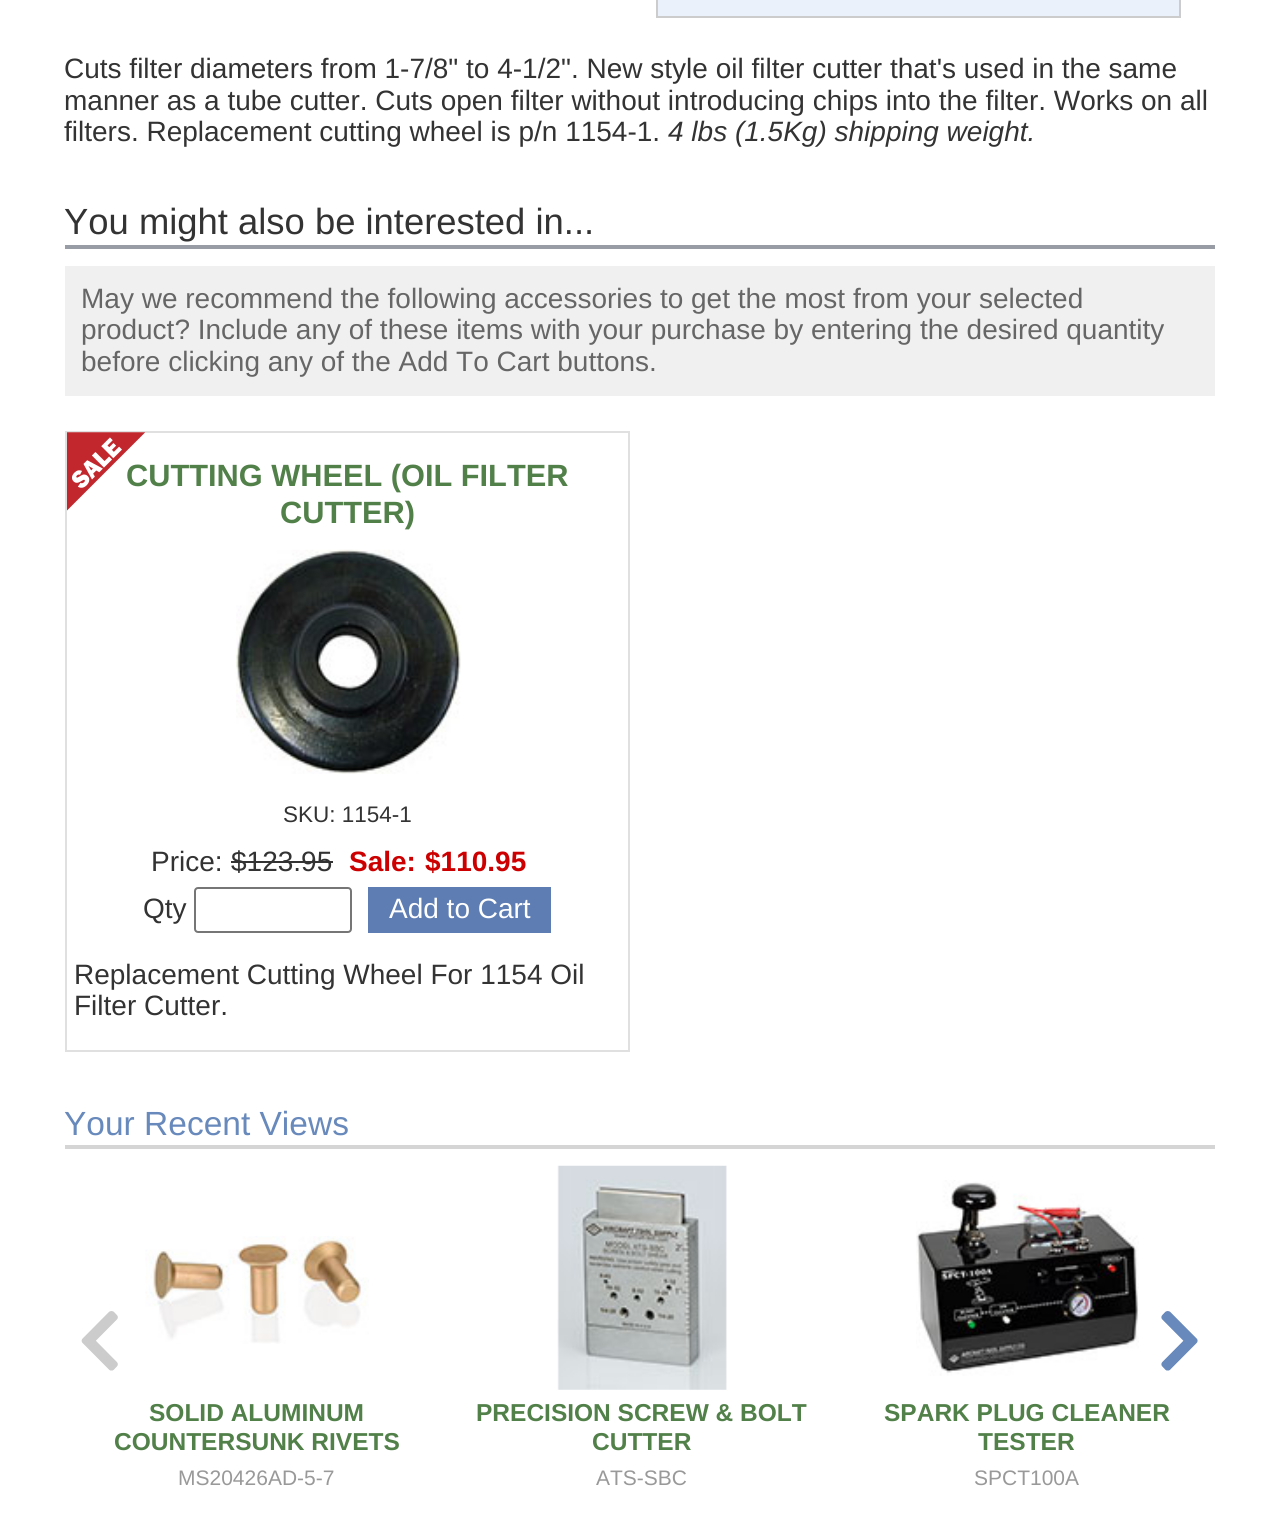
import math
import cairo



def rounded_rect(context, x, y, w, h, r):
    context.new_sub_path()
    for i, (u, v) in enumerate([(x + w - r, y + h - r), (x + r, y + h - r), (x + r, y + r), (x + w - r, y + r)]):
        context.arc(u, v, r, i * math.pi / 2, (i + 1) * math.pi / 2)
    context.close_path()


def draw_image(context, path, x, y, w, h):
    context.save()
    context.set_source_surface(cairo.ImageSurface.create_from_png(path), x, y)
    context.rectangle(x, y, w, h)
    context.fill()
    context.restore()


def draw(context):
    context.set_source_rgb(1, 1, 1)
    context.paint()
    context.set_source_rgb(234 / 255, 241 / 255, 251 / 255)
    context.rectangle(657, -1, 523, 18)
    context.fill_preserve()
    context.set_source_rgb(204 / 255, 204 / 255, 204 / 255)
    context.stroke()
    context.set_source_rgb(152 / 255, 157 / 255, 165 / 255)
    context.rectangle(65, 245, 1150, 4)
    context.fill()
    context.set_source_rgb(240 / 255, 240 / 255, 240 / 255)
    context.rectangle(65, 266, 1150, 130)
    context.fill()
    context.rectangle(66, 432, 563, 619)
    context.set_source_rgb(224 / 255, 224 / 255, 224 / 255)
    context.stroke()
    draw_image(context, "images/2.png", 236, 549, 225, 225)
    context.set_source_rgb(51 / 255, 51 / 255, 51 / 255)
    context.rectangle(231, 861, 102, 2)
    context.fill()
    rounded_rect(context, 195, 888, 156, 44, 3)
    context.set_source_rgb(118 / 255, 118 / 255, 118 / 255)
    context.stroke()
    context.set_source_rgb(93 / 255, 125 / 255, 179 / 255)
    context.rectangle(368, 887, 183, 46)
    context.fill()
    context.set_source_rgb(213 / 255, 213 / 255, 213 / 255)
    context.rectangle(65, 1145, 1150, 4)
    context.fill()
    draw_image(context, "images/3.png", 81, 1311, 37, 60)
    draw_image(context, "images/4.png", 1161, 1311, 37, 60)
    draw_image(context, "images/5.png", 145, 1236, 224, 108)
    draw_image(context, "images/6.png", 557, 1165, 170, 225)
    draw_image(context, "images/7.png", 916, 1180, 223, 196)
    context.select_font_face("Liberation Sans")
    context.set_font_size(28)
    context.set_source_rgb(51 / 255, 51 / 255, 51 / 255)
    context.move_to(64, 78)
    context.show_text("Cuts filter diameters from 1-7/8\" to 4-1/2\". New style oil filter cutter that's used in the same")
    context.move_to(64, 110)
    context.show_text("manner as a tube cutter. Cuts open filter without introducing chips into the filter. Works on all")
    context.move_to(64, 141)
    context.show_text("filters. Replacement cutting wheel is p/n 1154-1.")
    context.select_font_face("Liberation Sans", cairo.FontSlant.ITALIC)
    context.move_to(668, 141)
    context.show_text("4 lbs (1.5Kg) shipping weight.")
    context.select_font_face("Liberation Sans")
    context.set_font_size(36.4)
    context.move_to(64, 234)
    context.show_text("You might also be interested in...")
    context.set_font_size(28)
    context.set_source_rgb(102 / 255, 102 / 255, 102 / 255)
    context.move_to(81, 308)
    context.show_text("May we recommend the following accessories to get the most from your selected")
    context.move_to(81, 339)
    context.show_text("product? Include any of these items with your purchase by entering the desired quantity")
    context.move_to(81, 371)
    context.show_text("before clicking any of the Add To Cart buttons.")
    context.select_font_face("Liberation Sans", cairo.FontSlant.NORMAL, cairo.FontWeight.BOLD)
    context.set_font_size(30.75)
    context.set_source_rgb(81 / 255, 128 / 255, 73 / 255)
    context.move_to(126, 486)
    context.show_text("CUTTING WHEEL (OIL FILTER")
    draw_image(context, "images/1.png", 67, 432, 78, 79)
    context.move_to(280, 523)
    context.show_text("CUTTER)")
    context.select_font_face("Liberation Sans")
    context.set_font_size(22.5)
    context.set_source_rgb(51 / 255, 51 / 255, 51 / 255)
    context.move_to(283, 822)
    context.show_text("SKU: 1154-1")
    context.set_font_size(28)
    context.move_to(151, 871)
    context.show_text("Price:")
    context.move_to(231, 871)
    context.show_text("$123.95")
    context.select_font_face("Liberation Sans", cairo.FontSlant.NORMAL, cairo.FontWeight.BOLD)
    context.set_source_rgb(204 / 255, 0, 0)
    context.move_to(349, 871)
    context.show_text("Sale:")
    context.move_to(425, 871)
    context.show_text("$110.95")
    context.select_font_face("Liberation Sans")
    context.set_source_rgb(51 / 255, 51 / 255, 51 / 255)
    context.move_to(143, 918)
    context.show_text("Qty")
    context.set_source_rgb(1, 1, 1)
    context.move_to(389, 918)
    context.show_text("Add to Cart")
    context.set_source_rgb(51 / 255, 51 / 255, 51 / 255)
    context.move_to(74, 984)
    context.show_text("Replacement Cutting Wheel For 1154 Oil")
    context.move_to(74, 1015)
    context.show_text("Filter Cutter.")
    context.set_font_size(33.5)
    context.set_source_rgb(104 / 255, 137 / 255, 187 / 255)
    context.move_to(64, 1135)
    context.show_text("Your Recent Views")
    context.select_font_face("Liberation Sans", cairo.FontSlant.NORMAL, cairo.FontWeight.BOLD)
    context.set_font_size(24.5)
    context.set_source_rgb(81 / 255, 128 / 255, 73 / 255)
    context.move_to(149, 1421)
    context.show_text("SOLID ALUMINUM")
    context.move_to(114, 1450)
    context.show_text("COUNTERSUNK RIVETS")
    context.select_font_face("Liberation Sans")
    context.set_font_size(21)
    context.set_source_rgb(153 / 255, 153 / 255, 153 / 255)
    context.move_to(178, 1485)
    context.show_text("MS20426AD-5-7")
    context.select_font_face("Liberation Sans", cairo.FontSlant.NORMAL, cairo.FontWeight.BOLD)
    context.set_font_size(24.5)
    context.set_source_rgb(81 / 255, 128 / 255, 73 / 255)
    context.move_to(476, 1421)
    context.show_text("PRECISION SCREW & BOLT")
    context.move_to(592, 1450)
    context.show_text("CUTTER")
    context.select_font_face("Liberation Sans")
    context.set_font_size(21)
    context.set_source_rgb(153 / 255, 153 / 255, 153 / 255)
    context.move_to(596, 1485)
    context.show_text("ATS-SBC")
    context.select_font_face("Liberation Sans", cairo.FontSlant.NORMAL, cairo.FontWeight.BOLD)
    context.set_font_size(24.5)
    context.set_source_rgb(81 / 255, 128 / 255, 73 / 255)
    context.move_to(884, 1421)
    context.show_text("SPARK PLUG CLEANER")
    context.move_to(978, 1450)
    context.show_text("TESTER")
    context.select_font_face("Liberation Sans")
    context.set_font_size(21)
    context.set_source_rgb(153 / 255, 153 / 255, 153 / 255)
    context.move_to(974, 1485)
    context.show_text("SPCT100A")


surface = cairo.ImageSurface(cairo.Format.RGB24, 1278, 1513)
context = cairo.Context(surface)
options = cairo.FontOptions()
options.set_hint_metrics(cairo.HintMetrics.OFF)
options.set_hint_style(cairo.HintStyle.NONE)
context.set_font_options(options)
context.set_miter_limit(4)
draw(context)
surface.write_to_png("out.png")
